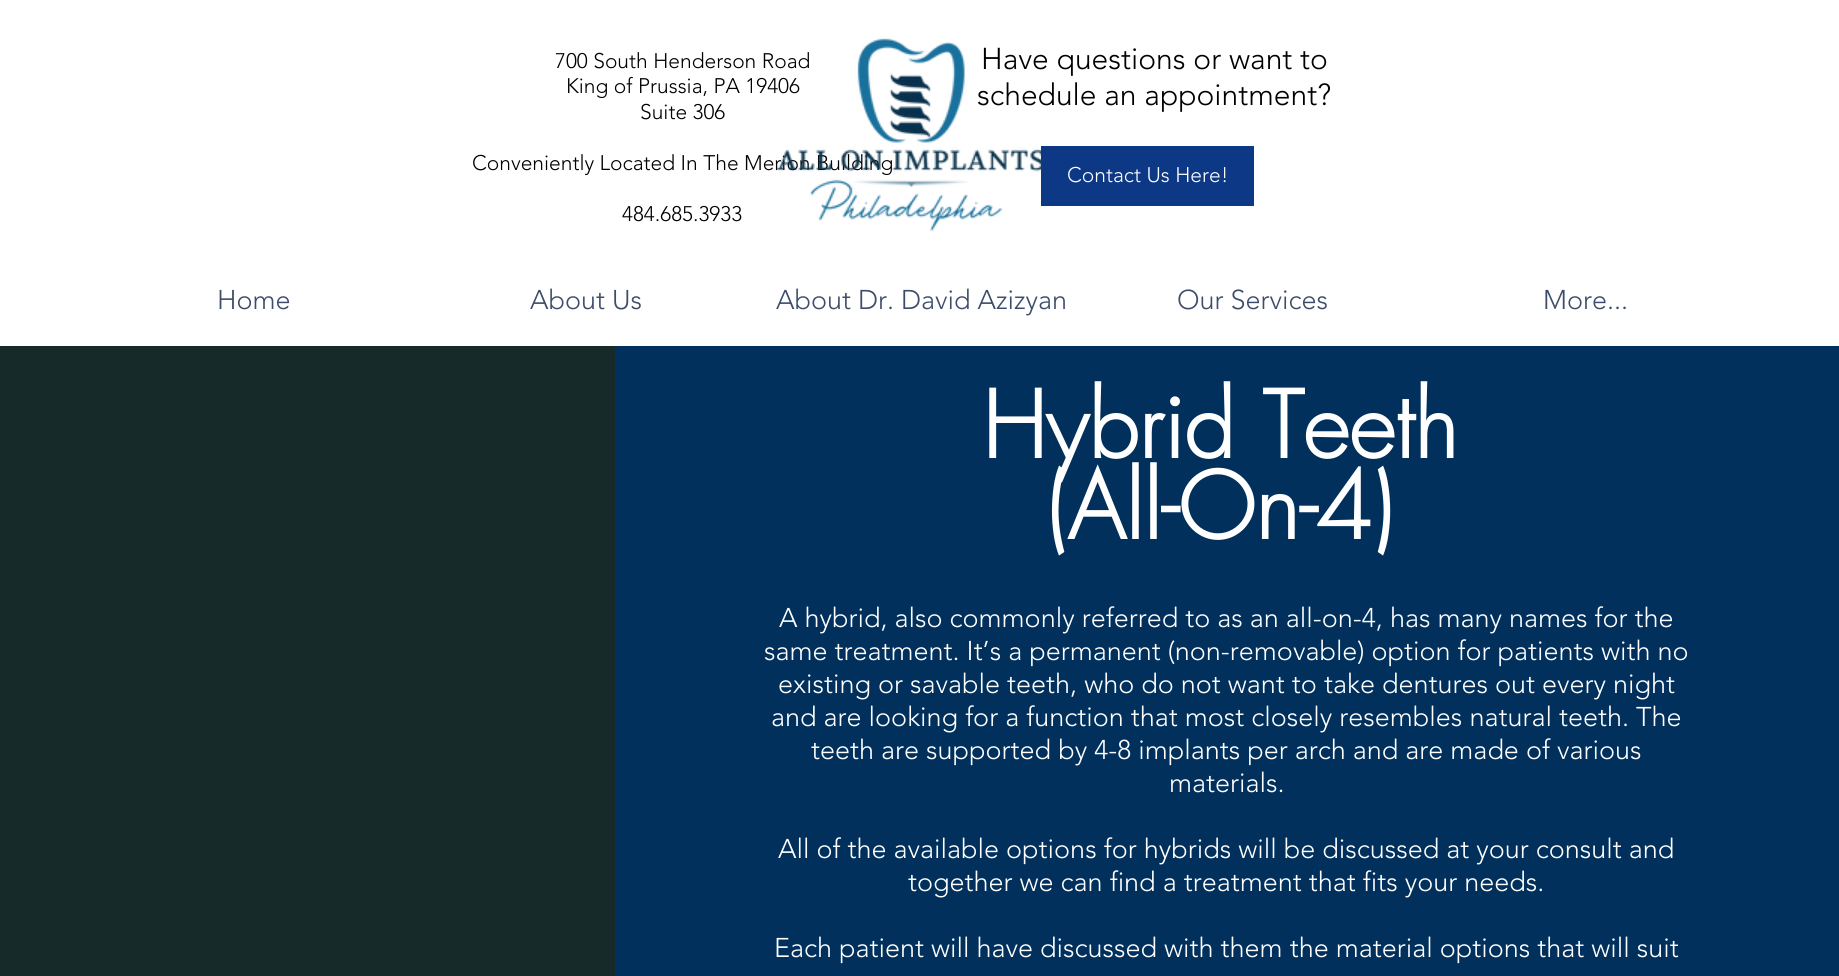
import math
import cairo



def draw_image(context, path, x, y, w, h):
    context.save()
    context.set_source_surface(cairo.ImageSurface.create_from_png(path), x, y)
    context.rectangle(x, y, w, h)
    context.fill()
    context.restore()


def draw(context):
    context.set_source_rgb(22 / 255, 42 / 255, 42 / 255)
    context.paint()
    context.set_source_rgb(1, 1, 1)
    context.rectangle(0, 0, 1839, 346)
    context.fill()
    context.set_source_rgb(13 / 255, 56 / 255, 133 / 255)
    context.rectangle(1041, 146, 213, 60)
    context.fill()
    context.set_source_rgb(0, 48 / 255, 91 / 255)
    context.rectangle(615, 346, 1224, 630)
    context.fill()
    context.select_font_face("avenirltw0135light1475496 Light")
    context.set_font_size(21)
    context.set_source_rgb(0, 0, 0)
    context.move_to(555, 68)
    context.show_text("700 South Henderson Road")
    context.move_to(566, 93)
    context.show_text("King of Prussia, PA 19406")
    context.move_to(640, 119)
    context.show_text("Suite 306")
    context.move_to(472, 170)
    context.show_text("Conveniently Located In The Merion Building")
    context.move_to(622, 221)
    context.show_text("484.685.3933")
    draw_image(context, "images/1.png", 776, 38, 265, 194)
    context.set_font_size(30)
    context.move_to(981, 69)
    context.show_text("Have questions or want to")
    context.move_to(977, 105)
    context.show_text("schedule an appointment?")
    context.set_font_size(21)
    context.set_source_rgb(1, 1, 1)
    context.move_to(1067, 182)
    context.show_text("Contact Us Here!")
    context.set_font_size(27)
    context.set_source_rgb(61 / 255, 77 / 255, 105 / 255)
    context.move_to(217, 309)
    context.show_text("Home")
    context.move_to(530, 309)
    context.show_text("About Us")
    context.move_to(776, 309)
    context.show_text("About Dr. David Azizyan")
    context.move_to(1177, 309)
    context.show_text("Our Services")
    context.move_to(1543, 309)
    context.show_text("More...")
    context.select_font_face("futura", cairo.FontSlant.NORMAL, cairo.FontWeight.BOLD)
    context.set_font_size(90)
    context.set_source_rgb(1, 1, 1)
    context.move_to(982, 458)
    context.show_text("Hybrid Teeth")
    context.move_to(1046, 539)
    context.show_text("(All-On-4)")
    context.select_font_face("avenirltw0135light1475496 Light")
    context.set_font_size(27)
    context.move_to(779, 627)
    context.show_text("A hybrid, also commonly referred to as an all-on-4, has many names for the")
    context.move_to(764, 660)
    context.show_text("same treatment. It’s a permanent (non-removable) option for patients with no")
    context.move_to(778, 693)
    context.show_text("existing or savable teeth, who do not want to take dentures out every night")
    context.move_to(771, 726)
    context.show_text("and are looking for a function that most closely resembles natural teeth. The")
    context.move_to(811, 759)
    context.show_text("teeth are supported by 4-8 implants per arch and are made of various")
    context.move_to(1169, 792)
    context.show_text("materials.")
    context.move_to(778, 858)
    context.show_text("All of the available options for hybrids will be discussed at your consult and")
    context.move_to(908, 891)
    context.show_text("together we can find a treatment that fits your needs.")
    context.move_to(774, 957)
    context.show_text("Each patient will have discussed with them the material options that will suit")


surface = cairo.ImageSurface(cairo.Format.RGB24, 1839, 976)
context = cairo.Context(surface)
options = cairo.FontOptions()
options.set_hint_metrics(cairo.HintMetrics.OFF)
options.set_hint_style(cairo.HintStyle.NONE)
context.set_font_options(options)
context.set_miter_limit(4)
draw(context)
surface.write_to_png("out.png")
